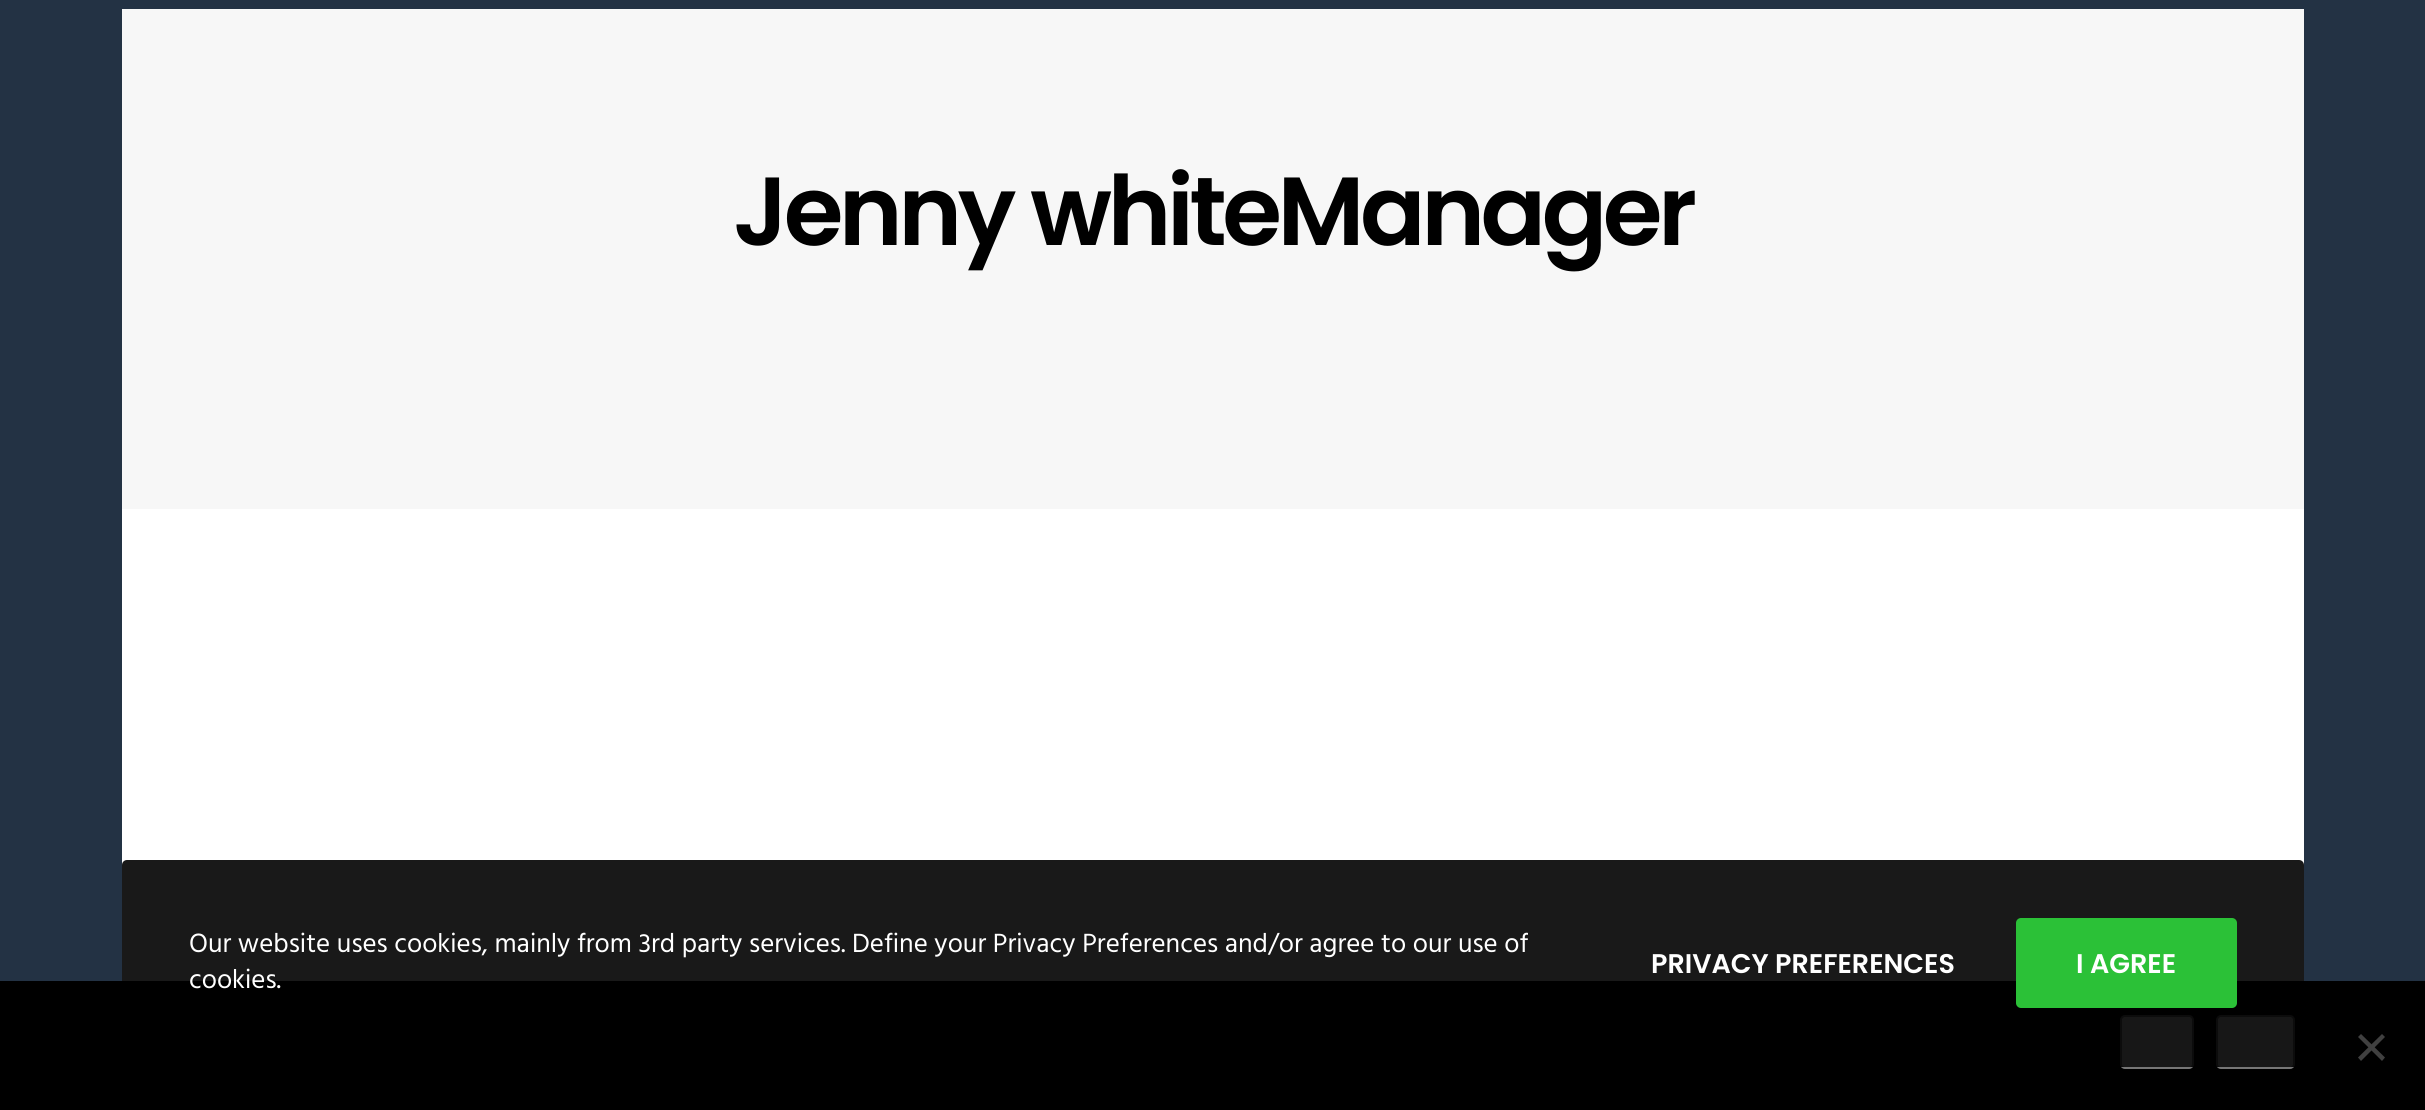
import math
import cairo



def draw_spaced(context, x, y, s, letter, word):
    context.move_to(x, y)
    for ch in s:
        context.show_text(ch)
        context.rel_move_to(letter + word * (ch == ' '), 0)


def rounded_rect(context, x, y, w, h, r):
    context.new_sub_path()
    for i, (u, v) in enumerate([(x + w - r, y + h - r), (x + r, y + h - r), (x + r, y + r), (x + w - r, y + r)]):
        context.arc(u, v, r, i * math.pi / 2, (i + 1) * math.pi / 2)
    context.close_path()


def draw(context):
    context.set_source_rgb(35 / 255, 50 / 255, 68 / 255)
    context.paint()
    context.set_source_rgb(247 / 255, 247 / 255, 247 / 255)
    context.rectangle(122, 9, 2182, 500)
    context.fill()
    context.set_source_rgb(1, 1, 1)
    context.rectangle(122, 509, 2182, 472)
    context.fill()
    context.set_source_rgb(0, 0, 0)
    context.rectangle(0, 981, 2425, 129)
    context.fill()
    context.set_source_rgb(239 / 255, 239 / 255, 239 / 255)
    rounded_rect(context, 2121, 1016, 72, 52, 4)
    context.fill_preserve()
    context.set_source_rgb(118 / 255, 118 / 255, 118 / 255)
    context.stroke()
    context.set_source_rgb(239 / 255, 239 / 255, 239 / 255)
    rounded_rect(context, 2217, 1016, 77, 52, 4)
    context.fill_preserve()
    context.set_source_rgb(118 / 255, 118 / 255, 118 / 255)
    context.stroke()
    context.set_source_rgba(0, 0, 0, 0.9)
    rounded_rect(context, 122, 860, 2182, 207, 5)
    context.fill()
    context.set_source_rgb(43 / 255, 193 / 255, 55 / 255)
    rounded_rect(context, 2016, 918, 221, 90, 5)
    context.fill()
    context.set_source_rgb(64 / 255, 64 / 255, 64 / 255)
    context.new_path()
    context.move_to(2382, 1034)
    context.line_to(2385, 1037)
    context.line_to(2361, 1061)
    context.line_to(2358, 1057.5)
    context.close_path()
    context.fill()
    context.new_path()
    context.move_to(2358, 1037)
    context.line_to(2361, 1034)
    context.line_to(2385, 1057.5)
    context.line_to(2382, 1061)
    context.close_path()
    context.fill()
    context.select_font_face("Poppins SemiBold")
    context.set_font_size(96.75)
    context.set_source_rgb(0, 0, 0)
    draw_spaced(context, 733, 245, "Jenny whiteManager", -4.5, 0)
    context.select_font_face("Hind")
    context.set_font_size(27)
    context.set_source_rgb(1, 1, 1)
    context.move_to(189, 952)
    context.show_text("Our website uses cookies, mainly from 3rd party services. Define your Privacy Preferences and/or agree to our use of")
    context.move_to(189, 988)
    context.show_text("cookies.")
    context.select_font_face("Poppins SemiBold")
    context.move_to(1651, 973)
    context.show_text("PRIVACY PREFERENCES")
    context.move_to(2076, 973)
    context.show_text("I AGREE")


surface = cairo.ImageSurface(cairo.Format.RGB24, 2425, 1110)
context = cairo.Context(surface)
options = cairo.FontOptions()
options.set_hint_metrics(cairo.HintMetrics.OFF)
options.set_hint_style(cairo.HintStyle.NONE)
context.set_font_options(options)
context.set_miter_limit(4)
draw(context)
surface.write_to_png("out.png")
